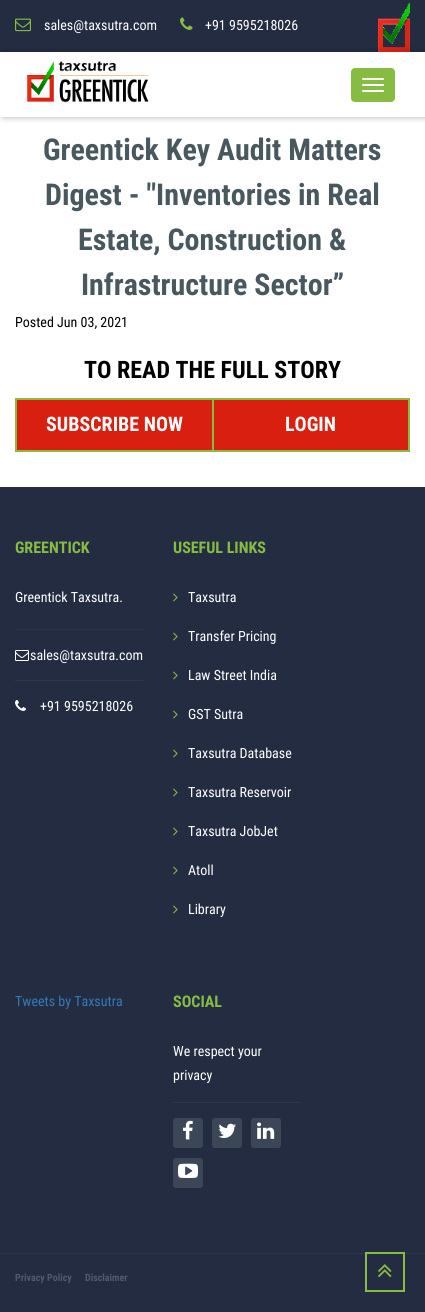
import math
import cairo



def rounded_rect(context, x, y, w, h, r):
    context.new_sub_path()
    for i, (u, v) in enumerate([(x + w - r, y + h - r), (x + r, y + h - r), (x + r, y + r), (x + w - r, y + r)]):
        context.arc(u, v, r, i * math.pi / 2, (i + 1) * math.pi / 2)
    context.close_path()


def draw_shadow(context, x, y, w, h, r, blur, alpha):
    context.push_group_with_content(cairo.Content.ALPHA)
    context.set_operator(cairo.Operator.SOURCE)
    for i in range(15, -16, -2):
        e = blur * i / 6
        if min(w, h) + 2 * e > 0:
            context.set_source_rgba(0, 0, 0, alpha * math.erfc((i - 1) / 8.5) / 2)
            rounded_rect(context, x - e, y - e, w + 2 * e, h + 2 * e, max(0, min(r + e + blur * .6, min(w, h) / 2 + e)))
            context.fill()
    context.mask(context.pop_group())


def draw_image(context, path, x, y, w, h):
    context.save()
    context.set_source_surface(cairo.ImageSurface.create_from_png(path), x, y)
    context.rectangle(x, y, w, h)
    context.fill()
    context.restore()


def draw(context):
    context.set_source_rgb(1, 1, 1)
    context.paint()
    context.set_source_rgb(36 / 255, 44 / 255, 66 / 255)
    context.rectangle(0, 0, 425, 52)
    context.fill()
    draw_image(context, "images/1.png", 15, 18, 16, 14)
    draw_image(context, "images/2.png", 180, 17, 13, 13)
    draw_image(context, "images/3.png", 378, 2, 32, 50)
    context.save()
    context.set_fill_rule(cairo.FillRule.EVEN_ODD)
    context.new_path()
    context.move_to(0, 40)
    context.line_to(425, 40)
    context.line_to(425, 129)
    context.line_to(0, 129)
    context.close_path()
    context.move_to(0, 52)
    context.line_to(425, 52)
    context.line_to(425, 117)
    context.line_to(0, 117)
    context.close_path()
    context.clip()
    context.set_source_rgb(0, 0, 0)
    draw_shadow(context, 3, 52, 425, 65, 0, 3.5, 0.3)
    context.restore()
    draw_image(context, "images/4.png", 27, 61, 122, 42)
    context.set_source_rgb(134 / 255, 188 / 255, 66 / 255)
    rounded_rect(context, 351, 68, 44, 34, 4)
    context.fill()
    context.set_source_rgb(1, 1, 1)
    rounded_rect(context, 362, 78, 22, 2, 1)
    context.fill()
    rounded_rect(context, 362, 84, 22, 2, 1)
    context.fill()
    rounded_rect(context, 362, 90, 22, 2, 1)
    context.fill()
    context.set_source_rgb(217 / 255, 32 / 255, 16 / 255)
    context.rectangle(17, 400, 391, 50)
    context.fill()
    context.set_source_rgb(134 / 255, 188 / 255, 66 / 255)
    context.rectangle(212, 398, 198, 2)
    context.fill()
    context.rectangle(408, 398, 2, 54)
    context.fill()
    context.rectangle(212, 450, 198, 2)
    context.fill()
    context.rectangle(212, 398, 2, 54)
    context.fill()
    context.rectangle(15, 398, 199, 2)
    context.fill()
    context.rectangle(15, 450, 199, 2)
    context.fill()
    context.rectangle(15, 398, 2, 54)
    context.fill()
    context.set_source_rgb(36 / 255, 44 / 255, 66 / 255)
    context.rectangle(0, 487, 425, 825)
    context.fill()
    context.set_source_rgb(47 / 255, 55 / 255, 76 / 255)
    context.rectangle(0, 1253, 425, 1)
    context.fill()
    context.rectangle(366, 1253, 38, 38)
    context.set_source_rgb(134 / 255, 188 / 255, 66 / 255)
    context.stroke()
    draw_image(context, "images/5.png", 378, 1264, 14, 13)
    context.set_source_rgb(47 / 255, 55 / 255, 76 / 255)
    context.rectangle(15, 629, 128, 1)
    context.fill()
    draw_image(context, "images/6.png", 15, 650, 14, 11)
    context.rectangle(15, 680, 128, 1)
    context.fill()
    draw_image(context, "images/7.png", 15, 700, 11, 11)
    draw_image(context, "images/8.png", 173, 593, 5, 9)
    draw_image(context, "images/8.png", 173, 632, 5, 9)
    draw_image(context, "images/8.png", 173, 671, 5, 9)
    draw_image(context, "images/8.png", 173, 710, 5, 9)
    draw_image(context, "images/8.png", 173, 749, 5, 9)
    draw_image(context, "images/8.png", 173, 788, 5, 9)
    draw_image(context, "images/8.png", 173, 827, 5, 9)
    draw_image(context, "images/8.png", 173, 866, 5, 9)
    draw_image(context, "images/8.png", 173, 905, 5, 9)
    context.rectangle(173, 1102, 127, 1)
    context.fill()
    context.set_source_rgb(59 / 255, 71 / 255, 87 / 255)
    rounded_rect(context, 173, 1118, 30, 30, 3)
    context.fill()
    draw_image(context, "images/9.png", 183, 1120, 10, 20)
    rounded_rect(context, 212, 1118, 30, 30, 3)
    context.fill()
    draw_image(context, "images/10.png", 218, 1123, 18, 15)
    rounded_rect(context, 251, 1118, 30, 30, 3)
    context.fill()
    draw_image(context, "images/11.png", 257, 1122, 18, 17)
    rounded_rect(context, 173, 1158, 30, 30, 3)
    context.fill()
    draw_image(context, "images/12.png", 178, 1163, 20, 15)
    context.select_font_face("Roboto Condensed")
    context.set_font_size(14)
    context.set_source_rgb(1, 1, 1)
    context.move_to(44, 30)
    context.show_text("sales@taxsutra.com")
    context.move_to(205, 30)
    context.show_text("+91 9595218026")
    context.select_font_face("Roboto Condensed", cairo.FontSlant.NORMAL, cairo.FontWeight.BOLD)
    context.set_font_size(30)
    context.set_source_rgb(73 / 255, 87 / 255, 95 / 255)
    context.move_to(43, 160)
    context.show_text("Greentick Key Audit Matters")
    context.move_to(45, 205)
    context.show_text("Digest - \"Inventories in Real")
    context.move_to(78, 250)
    context.show_text("Estate, Construction &")
    context.move_to(81, 295)
    context.show_text("Infrastructure Sector”")
    context.select_font_face("Roboto Condensed")
    context.set_font_size(14)
    context.set_source_rgb(0, 0, 0)
    context.move_to(15, 327)
    context.show_text("Posted Jun 03, 2021")
    context.select_font_face("Roboto Condensed", cairo.FontSlant.NORMAL, cairo.FontWeight.BOLD)
    context.set_font_size(24)
    context.move_to(84, 378)
    context.show_text("TO READ THE FULL STORY")
    context.set_font_size(20)
    context.set_source_rgb(1, 1, 1)
    context.move_to(46, 431)
    context.show_text("SUBSCRIBE NOW")
    context.move_to(285, 431)
    context.show_text("LOGIN")
    context.set_font_size(16)
    context.set_source_rgb(134 / 255, 188 / 255, 66 / 255)
    context.move_to(15, 553)
    context.show_text("GREENTICK")
    context.select_font_face("Roboto Condensed")
    context.set_font_size(14)
    context.set_source_rgb(1, 1, 1)
    context.move_to(15, 602)
    context.show_text("Greentick Taxsutra.")
    context.move_to(30, 660)
    context.show_text("sales@taxsutra.com")
    context.move_to(40, 711)
    context.show_text("+91 9595218026")
    context.select_font_face("Roboto Condensed", cairo.FontSlant.NORMAL, cairo.FontWeight.BOLD)
    context.set_font_size(16)
    context.set_source_rgb(134 / 255, 188 / 255, 66 / 255)
    context.move_to(173, 553)
    context.show_text("USEFUL LINKS")
    context.select_font_face("Roboto Condensed")
    context.set_font_size(14)
    context.set_source_rgb(1, 1, 1)
    context.move_to(188, 602)
    context.show_text("Taxsutra")
    context.move_to(188, 641)
    context.show_text("Transfer Pricing")
    context.move_to(188, 680)
    context.show_text("Law Street India")
    context.move_to(188, 719)
    context.show_text("GST Sutra")
    context.move_to(188, 758)
    context.show_text("Taxsutra Database")
    context.move_to(188, 797)
    context.show_text("Taxsutra Reservoir")
    context.move_to(188, 836)
    context.show_text("Taxsutra JobJet")
    context.move_to(188, 875)
    context.show_text("Atoll")
    context.move_to(188, 914)
    context.show_text("Library")
    context.set_source_rgb(51 / 255, 122 / 255, 183 / 255)
    context.move_to(15, 1006)
    context.show_text("Tweets by Taxsutra")
    context.select_font_face("Roboto Condensed", cairo.FontSlant.NORMAL, cairo.FontWeight.BOLD)
    context.set_font_size(16)
    context.set_source_rgb(134 / 255, 188 / 255, 66 / 255)
    context.move_to(173, 1007)
    context.show_text("SOCIAL")
    context.select_font_face("Roboto Condensed")
    context.set_font_size(14)
    context.set_source_rgb(1, 1, 1)
    context.move_to(173, 1056)
    context.show_text("We respect your")
    context.move_to(173, 1080)
    context.show_text("privacy")
    context.select_font_face("Roboto Condensed", cairo.FontSlant.NORMAL, cairo.FontWeight.BOLD)
    context.set_font_size(10)
    context.set_source_rgb(79 / 255, 91 / 255, 107 / 255)
    context.move_to(15, 1281)
    context.show_text("Privacy Policy")
    context.move_to(85, 1281)
    context.show_text("Disclaimer")


surface = cairo.ImageSurface(cairo.Format.RGB24, 425, 1312)
context = cairo.Context(surface)
options = cairo.FontOptions()
options.set_hint_metrics(cairo.HintMetrics.OFF)
options.set_hint_style(cairo.HintStyle.NONE)
context.set_font_options(options)
context.set_miter_limit(4)
draw(context)
surface.write_to_png("out.png")
